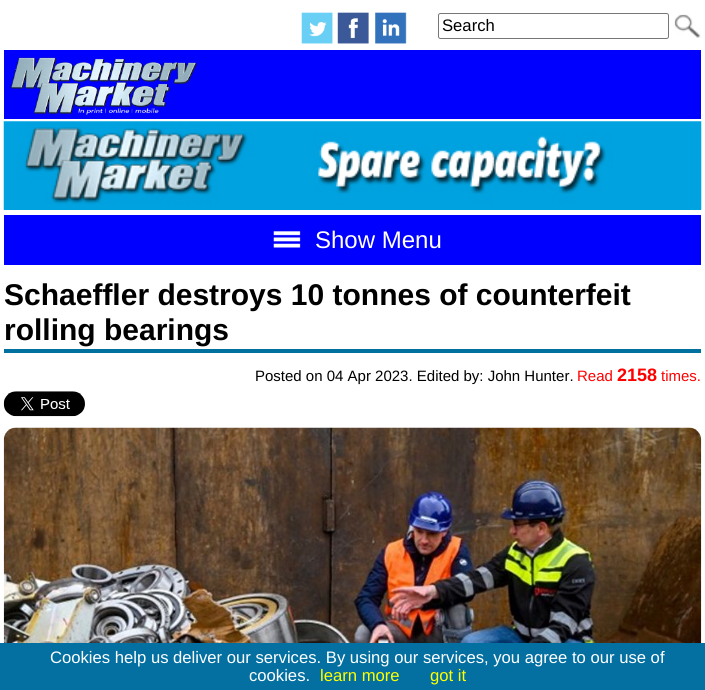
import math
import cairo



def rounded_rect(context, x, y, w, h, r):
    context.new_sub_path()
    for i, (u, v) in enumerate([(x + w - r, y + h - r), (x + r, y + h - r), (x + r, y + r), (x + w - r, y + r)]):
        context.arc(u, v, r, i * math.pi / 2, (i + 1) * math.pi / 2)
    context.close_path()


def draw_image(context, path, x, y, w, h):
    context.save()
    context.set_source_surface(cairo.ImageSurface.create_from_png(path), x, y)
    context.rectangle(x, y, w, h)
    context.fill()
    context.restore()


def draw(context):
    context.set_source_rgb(1, 1, 1)
    context.paint()
    draw_image(context, "images/1.png", 301, 12, 32, 32)
    draw_image(context, "images/2.png", 337, 12, 32, 32)
    draw_image(context, "images/3.png", 375, 12, 32, 32)
    rounded_rect(context, 438.5, 13.5, 230, 25, 2)
    context.set_source_rgb(118 / 255, 118 / 255, 118 / 255)
    context.set_line_width(1)
    context.stroke()
    draw_image(context, "images/4.png", 674, 14, 27, 24)
    context.set_source_rgb(0, 0, 1)
    context.rectangle(4, 50, 697, 69)
    context.fill()
    draw_image(context, "images/5.png", 10, 57, 188, 58)
    draw_image(context, "images/6.png", 3, 121, 699, 89)
    context.rectangle(4, 215, 697, 50)
    context.fill()
    draw_image(context, "images/7.png", 273, 231, 28, 17)
    context.set_source_rgb(0, 112 / 255, 158 / 255)
    context.rectangle(4, 349, 697, 4)
    context.fill()
    draw_image(context, "images/8.png", 3, 391, 82, 26)
    draw_image(context, "images/9.png", 3, 427, 699, 216)
    context.set_source_rgb(4 / 255, 112 / 255, 161 / 255)
    context.rectangle(0, 643, 705, 47)
    context.fill()
    context.select_font_face("Liberation Sans")
    context.set_font_size(16.65)
    context.set_source_rgb(0, 0, 0)
    context.move_to(442, 31)
    context.show_text("Search")
    context.set_font_size(24)
    context.set_source_rgb(1, 1, 1)
    context.move_to(315, 248)
    context.show_text("Show Menu")
    context.select_font_face("Liberation Sans", cairo.FontSlant.NORMAL, cairo.FontWeight.BOLD)
    context.set_font_size(30)
    context.set_source_rgb(0, 0, 0)
    context.move_to(4, 305)
    context.show_text("Schaeffler destroys 10 tonnes of counterfeit")
    context.move_to(4, 340)
    context.show_text("rolling bearings")
    context.select_font_face("Liberation Sans")
    context.set_font_size(15)
    context.move_to(255, 381)
    context.show_text("Posted on 04 Apr 2023. Edited by: John Hunter.")
    context.set_source_rgb(1, 0, 0)
    context.move_to(577, 381)
    context.show_text("Read")
    context.select_font_face("Liberation Sans", cairo.FontSlant.NORMAL, cairo.FontWeight.BOLD)
    context.set_font_size(18)
    context.move_to(617, 381)
    context.show_text("2158")
    context.select_font_face("Liberation Sans")
    context.set_font_size(15)
    context.move_to(661, 381)
    context.show_text("times.")
    context.set_font_size(16.65)
    context.set_source_rgb(1, 1, 1)
    context.move_to(50, 663)
    context.show_text("Cookies help us deliver our services. By using our services, you agree to our use of")
    context.move_to(249, 681)
    context.show_text("cookies.")
    context.set_source_rgb(1, 1, 0)
    context.move_to(320, 681)
    context.show_text("learn more")
    context.move_to(430, 681)
    context.show_text("got it")


surface = cairo.ImageSurface(cairo.Format.RGB24, 705, 690)
context = cairo.Context(surface)
options = cairo.FontOptions()
options.set_hint_metrics(cairo.HintMetrics.OFF)
options.set_hint_style(cairo.HintStyle.NONE)
context.set_font_options(options)
context.set_miter_limit(4)
draw(context)
surface.write_to_png("out.png")
